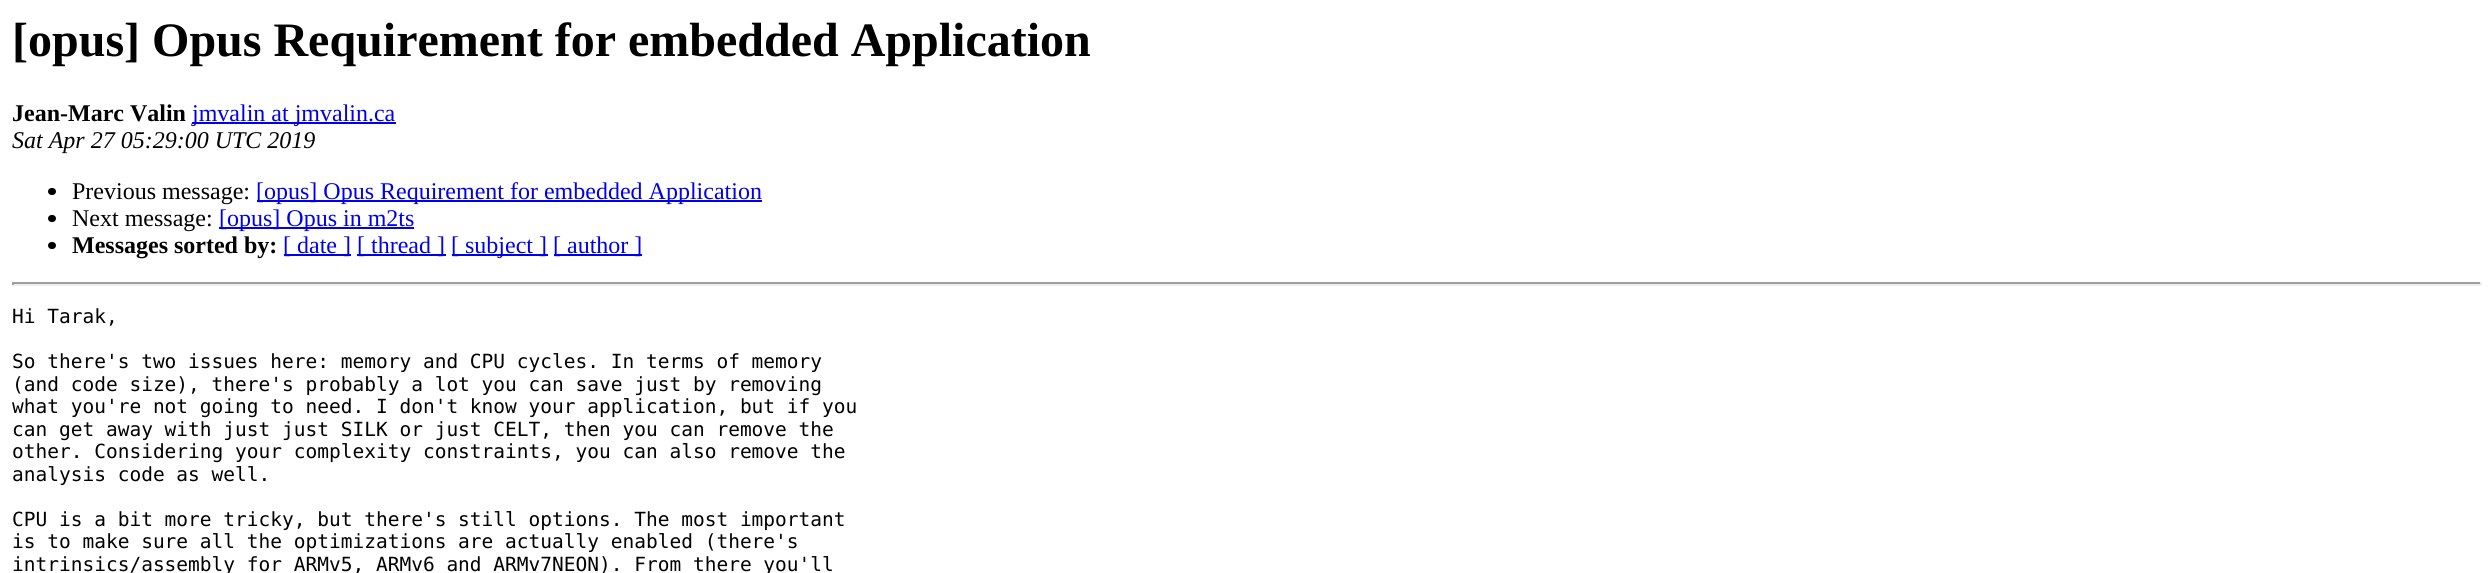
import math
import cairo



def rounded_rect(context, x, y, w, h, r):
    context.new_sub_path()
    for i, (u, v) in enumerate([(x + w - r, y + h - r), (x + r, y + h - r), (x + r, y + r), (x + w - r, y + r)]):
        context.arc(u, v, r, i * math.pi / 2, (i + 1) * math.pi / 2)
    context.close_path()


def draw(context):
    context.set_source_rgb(1, 1, 1)
    context.paint()
    context.set_source_rgb(0, 0, 238 / 255)
    context.rectangle(192, 122, 204, 2)
    context.fill()
    context.set_source_rgb(0, 0, 0)
    rounded_rect(context, 48, 188, 8, 7, 3.5)
    context.fill()
    context.set_source_rgb(0, 0, 238 / 255)
    context.rectangle(257, 200, 505, 2)
    context.fill()
    context.set_source_rgb(0, 0, 0)
    rounded_rect(context, 48, 215, 8, 7, 3.5)
    context.fill()
    context.set_source_rgb(0, 0, 238 / 255)
    context.rectangle(219, 227, 195, 2)
    context.fill()
    context.set_source_rgb(0, 0, 0)
    rounded_rect(context, 48, 242, 8, 7, 3.5)
    context.fill()
    context.set_source_rgb(0, 0, 238 / 255)
    context.rectangle(284, 254, 67, 2)
    context.fill()
    context.rectangle(357, 254, 89, 2)
    context.fill()
    context.rectangle(452, 254, 96, 2)
    context.fill()
    context.rectangle(554, 254, 88, 2)
    context.fill()
    context.set_source_rgb(159 / 255, 159 / 255, 159 / 255)
    context.rectangle(12, 282, 2469, 2)
    context.fill()
    context.set_source_rgb(238 / 255, 238 / 255, 238 / 255)
    context.rectangle(2480, 282, 2, 3)
    context.fill()
    context.rectangle(12, 284, 2469, 2)
    context.fill()
    context.set_source_rgb(159 / 255, 159 / 255, 159 / 255)
    context.rectangle(12, 282, 2, 3)
    context.fill()
    context.select_font_face("Liberation Serif", cairo.FontSlant.NORMAL, cairo.FontWeight.BOLD)
    context.set_font_size(48)
    context.set_source_rgb(0, 0, 0)
    context.move_to(12, 56)
    context.show_text("[opus] Opus Requirement for embedded Application")
    context.set_font_size(24)
    context.move_to(12, 121)
    context.show_text("Jean-Marc Valin")
    context.select_font_face("Liberation Serif")
    context.set_source_rgb(0, 0, 238 / 255)
    context.move_to(192, 121)
    context.show_text("jmvalin at jmvalin.ca")
    context.select_font_face("Liberation Serif", cairo.FontSlant.ITALIC)
    context.set_source_rgb(0, 0, 0)
    context.move_to(12, 148)
    context.show_text("Sat Apr 27 05:29:00 UTC 2019")
    context.select_font_face("Liberation Serif")
    context.move_to(72, 199)
    context.show_text("Previous message:")
    context.set_source_rgb(0, 0, 238 / 255)
    context.move_to(256, 199)
    context.show_text("[opus] Opus Requirement for embedded Application")
    context.set_source_rgb(0, 0, 0)
    context.move_to(72, 226)
    context.show_text("Next message:")
    context.set_source_rgb(0, 0, 238 / 255)
    context.move_to(219, 226)
    context.show_text("[opus] Opus in m2ts")
    context.select_font_face("Liberation Serif", cairo.FontSlant.NORMAL, cairo.FontWeight.BOLD)
    context.set_source_rgb(0, 0, 0)
    context.move_to(72, 253)
    context.show_text("Messages sorted by:")
    context.select_font_face("Liberation Serif")
    context.set_source_rgb(0, 0, 238 / 255)
    context.move_to(283, 253)
    context.show_text("[ date ]")
    context.move_to(357, 253)
    context.show_text("[ thread ]")
    context.move_to(451, 253)
    context.show_text("[ subject ]")
    context.move_to(553, 253)
    context.show_text("[ author ]")
    context.select_font_face("DejaVu Sans Mono")
    context.set_font_size(19.5)
    context.set_source_rgb(0, 0, 0)
    context.move_to(12, 323)
    context.show_text("Hi Tarak,")
    context.move_to(12, 368)
    context.show_text("So there's two issues here: memory and CPU cycles. In terms of memory")
    context.move_to(12, 391)
    context.show_text("(and code size), there's probably a lot you can save just by removing")
    context.move_to(12, 413)
    context.show_text("what you're not going to need. I don't know your application, but if you")
    context.move_to(12, 436)
    context.show_text("can get away with just just SILK or just CELT, then you can remove the")
    context.move_to(12, 458)
    context.show_text("other. Considering your complexity constraints, you can also remove the")
    context.move_to(12, 481)
    context.show_text("analysis code as well.")
    context.move_to(12, 526)
    context.show_text("CPU is a bit more tricky, but there's still options. The most important")
    context.move_to(12, 548)
    context.show_text("is to make sure all the optimizations are actually enabled (there's")
    context.move_to(12, 571)
    context.show_text("intrinsics/assembly for ARMv5, ARMv6 and ARMv7NEON). From there you'll")


surface = cairo.ImageSurface(cairo.Format.RGB24, 2492, 573)
context = cairo.Context(surface)
options = cairo.FontOptions()
options.set_hint_metrics(cairo.HintMetrics.OFF)
options.set_hint_style(cairo.HintStyle.NONE)
context.set_font_options(options)
context.set_miter_limit(4)
draw(context)
surface.write_to_png("out.png")
